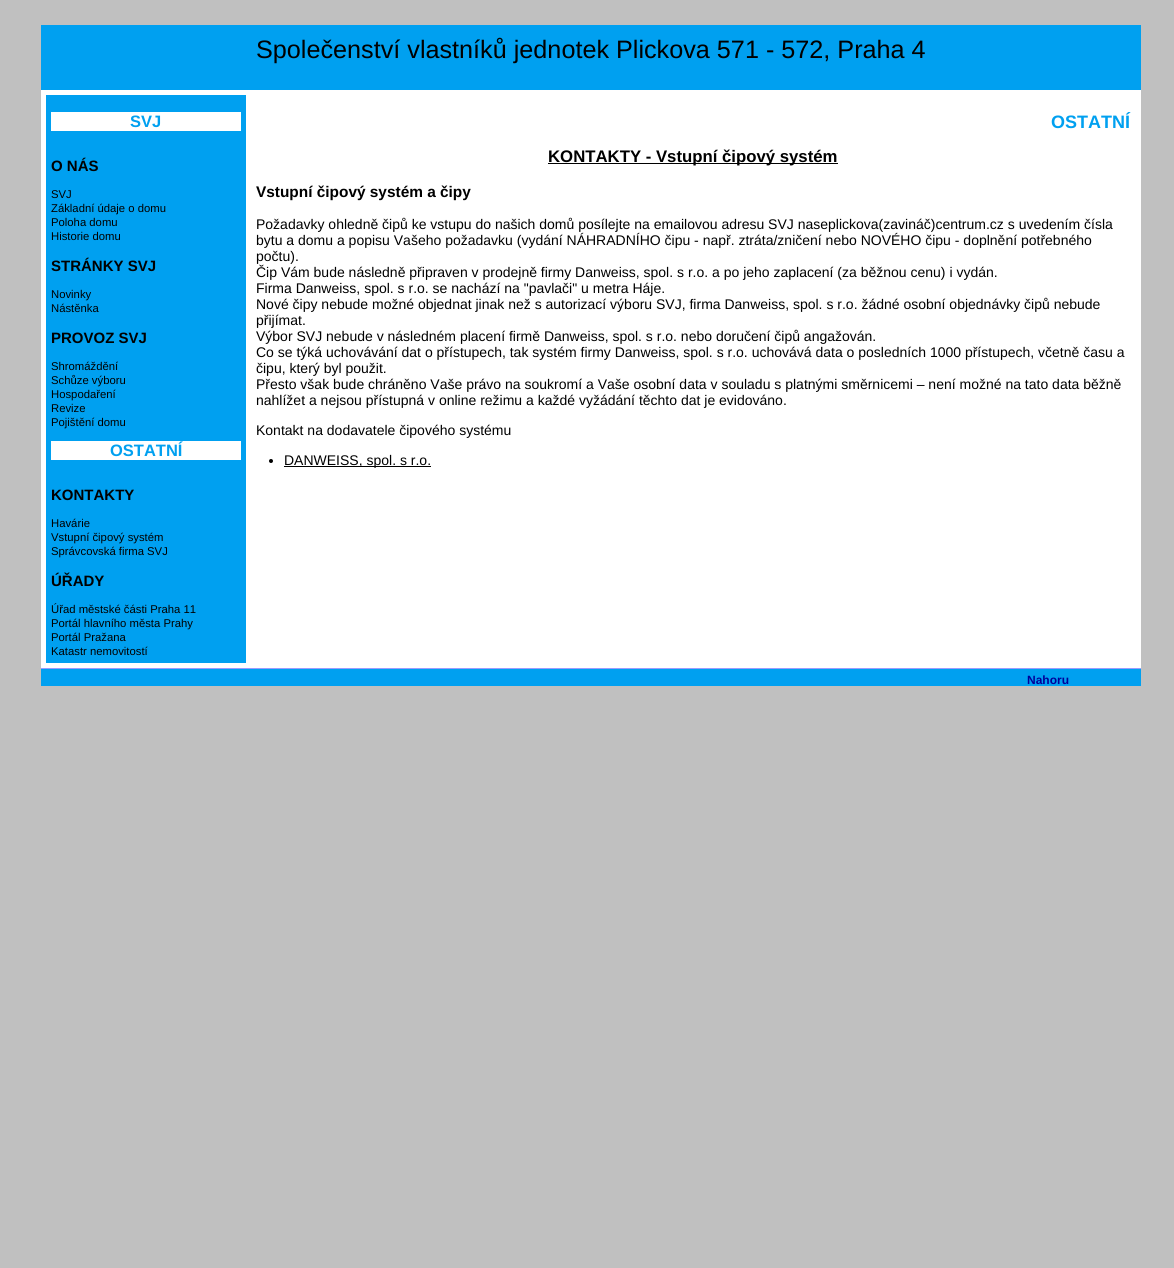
import math
import cairo



def draw(context):
    context.set_source_rgb(192 / 255, 192 / 255, 192 / 255)
    context.paint()
    context.set_source_rgb(1, 1, 1)
    context.rectangle(41, 90, 1100, 578)
    context.fill()
    context.set_source_rgb(0, 160 / 255, 240 / 255)
    context.rectangle(41, 25, 1100, 65)
    context.fill()
    context.rectangle(46, 95, 200, 568)
    context.fill()
    context.set_source_rgb(1, 1, 1)
    context.rectangle(51, 112, 190, 19)
    context.fill()
    context.rectangle(51, 441, 190, 19)
    context.fill()
    context.set_source_rgb(0, 0, 0)
    context.rectangle(548, 163, 290, 1)
    context.fill()
    context.arc(271, 461, 2, 0, 2 * math.pi)
    context.fill()
    context.rectangle(284, 466, 147, 1)
    context.fill()
    context.set_source_rgb(0, 160 / 255, 240 / 255)
    context.rectangle(41, 669, 1100, 17)
    context.fill()
    context.set_source_rgb(153 / 255, 154 / 255, 1)
    context.rectangle(41, 668, 1100, 1)
    context.fill()
    context.select_font_face("Liberation Sans")
    context.set_font_size(25.2)
    context.set_source_rgb(0, 0, 0)
    context.move_to(256, 58)
    context.show_text("Společenství vlastníků jednotek Plickova 571 - 572, Praha 4")
    context.select_font_face("Liberation Sans", cairo.FontSlant.NORMAL, cairo.FontWeight.BOLD)
    context.set_font_size(16.5)
    context.set_source_rgb(0, 160 / 255, 240 / 255)
    context.move_to(130, 127)
    context.show_text("SVJ")
    context.set_font_size(15)
    context.set_source_rgb(0, 0, 0)
    context.move_to(51, 171)
    context.show_text("O NÁS")
    context.select_font_face("Liberation Sans")
    context.set_font_size(11.3)
    context.move_to(51, 198)
    context.show_text("SVJ")
    context.move_to(51, 212)
    context.show_text("Základní údaje o domu")
    context.move_to(51, 226)
    context.show_text("Poloha domu")
    context.move_to(51, 240)
    context.show_text("Historie domu")
    context.select_font_face("Liberation Sans", cairo.FontSlant.NORMAL, cairo.FontWeight.BOLD)
    context.set_font_size(15)
    context.move_to(51, 271)
    context.show_text("STRÁNKY SVJ")
    context.select_font_face("Liberation Sans")
    context.set_font_size(11.3)
    context.move_to(51, 298)
    context.show_text("Novinky")
    context.move_to(51, 312)
    context.show_text("Nástěnka")
    context.select_font_face("Liberation Sans", cairo.FontSlant.NORMAL, cairo.FontWeight.BOLD)
    context.set_font_size(15)
    context.move_to(51, 343)
    context.show_text("PROVOZ SVJ")
    context.select_font_face("Liberation Sans")
    context.set_font_size(11.3)
    context.move_to(51, 370)
    context.show_text("Shromáždění")
    context.move_to(51, 384)
    context.show_text("Schůze výboru")
    context.move_to(51, 398)
    context.show_text("Hospodaření")
    context.move_to(51, 412)
    context.show_text("Revize")
    context.move_to(51, 426)
    context.show_text("Pojištění domu")
    context.select_font_face("Liberation Sans", cairo.FontSlant.NORMAL, cairo.FontWeight.BOLD)
    context.set_font_size(16.5)
    context.set_source_rgb(0, 160 / 255, 240 / 255)
    context.move_to(110, 456)
    context.show_text("OSTATNÍ")
    context.set_font_size(15)
    context.set_source_rgb(0, 0, 0)
    context.move_to(51, 500)
    context.show_text("KONTAKTY")
    context.select_font_face("Liberation Sans")
    context.set_font_size(11.3)
    context.move_to(51, 527)
    context.show_text("Havárie")
    context.move_to(51, 541)
    context.show_text("Vstupní čipový systém")
    context.move_to(51, 555)
    context.show_text("Správcovská firma SVJ")
    context.select_font_face("Liberation Sans", cairo.FontSlant.NORMAL, cairo.FontWeight.BOLD)
    context.set_font_size(15)
    context.move_to(51, 586)
    context.show_text("ÚŘADY")
    context.select_font_face("Liberation Sans")
    context.set_font_size(11.3)
    context.move_to(51, 613)
    context.show_text("Úřad městské části Praha 11")
    context.move_to(51, 627)
    context.show_text("Portál hlavního města Prahy")
    context.move_to(51, 641)
    context.show_text("Portál Pražana")
    context.move_to(51, 655)
    context.show_text("Katastr nemovitostí")
    context.select_font_face("Liberation Sans", cairo.FontSlant.NORMAL, cairo.FontWeight.BOLD)
    context.set_font_size(18)
    context.set_source_rgb(0, 160 / 255, 240 / 255)
    context.move_to(1051, 128)
    context.show_text("OSTATNÍ")
    context.set_font_size(16.75)
    context.set_source_rgb(0, 0, 0)
    context.move_to(548, 162)
    context.show_text("KONTAKTY - Vstupní čipový systém")
    context.set_font_size(15.4)
    context.move_to(256, 197)
    context.show_text("Vstupní čipový systém a čipy")
    context.select_font_face("Liberation Sans")
    context.set_font_size(14)
    context.move_to(256, 229)
    context.show_text("Požadavky ohledně čipů ke vstupu do našich domů posílejte na emailovou adresu SVJ naseplickova(zavináč)centrum.cz s uvedením čísla")
    context.move_to(256, 245)
    context.show_text("bytu a domu a popisu Vašeho požadavku (vydání NÁHRADNÍHO čipu - např. ztráta/zničení nebo NOVÉHO čipu - doplnění potřebného")
    context.move_to(256, 261)
    context.show_text("počtu).")
    context.move_to(256, 277)
    context.show_text("Čip Vám bude následně připraven v prodejně firmy Danweiss, spol. s r.o. a po jeho zaplacení (za běžnou cenu) i vydán.")
    context.move_to(256, 293)
    context.show_text("Firma Danweiss, spol. s r.o. se nachází na \"pavlači\" u metra Háje.")
    context.move_to(256, 309)
    context.show_text("Nové čipy nebude možné objednat jinak než s autorizací výboru SVJ, firma Danweiss, spol. s r.o. žádné osobní objednávky čipů nebude")
    context.move_to(256, 325)
    context.show_text("přijímat.")
    context.move_to(256, 341)
    context.show_text("Výbor SVJ nebude v následném placení firmě Danweiss, spol. s r.o. nebo doručení čipů angažován.")
    context.move_to(256, 357)
    context.show_text("Co se týká uchovávání dat o přístupech, tak systém firmy Danweiss, spol. s r.o. uchovává data o posledních 1000 přístupech, včetně času a")
    context.move_to(256, 373)
    context.show_text("čipu, který byl použit.")
    context.move_to(256, 389)
    context.show_text("Přesto však bude chráněno Vaše právo na soukromí a Vaše osobní data v souladu s platnými směrnicemi – není možné na tato data běžně")
    context.move_to(256, 405)
    context.show_text("nahlížet a nejsou přístupná v online režimu a každé vyžádání těchto dat je evidováno.")
    context.move_to(256, 435)
    context.show_text("Kontakt na dodavatele čipového systému")
    context.move_to(284, 465)
    context.show_text("DANWEISS, spol. s r.o.")
    context.select_font_face("Liberation Sans", cairo.FontSlant.NORMAL, cairo.FontWeight.BOLD)
    context.set_font_size(12)
    context.set_source_rgb(0, 0, 153 / 255)
    context.move_to(1027, 684)
    context.show_text("Nahoru")


surface = cairo.ImageSurface(cairo.Format.RGB24, 1174, 1268)
context = cairo.Context(surface)
options = cairo.FontOptions()
options.set_hint_metrics(cairo.HintMetrics.OFF)
options.set_hint_style(cairo.HintStyle.NONE)
context.set_font_options(options)
context.set_miter_limit(4)
draw(context)
surface.write_to_png("out.png")
